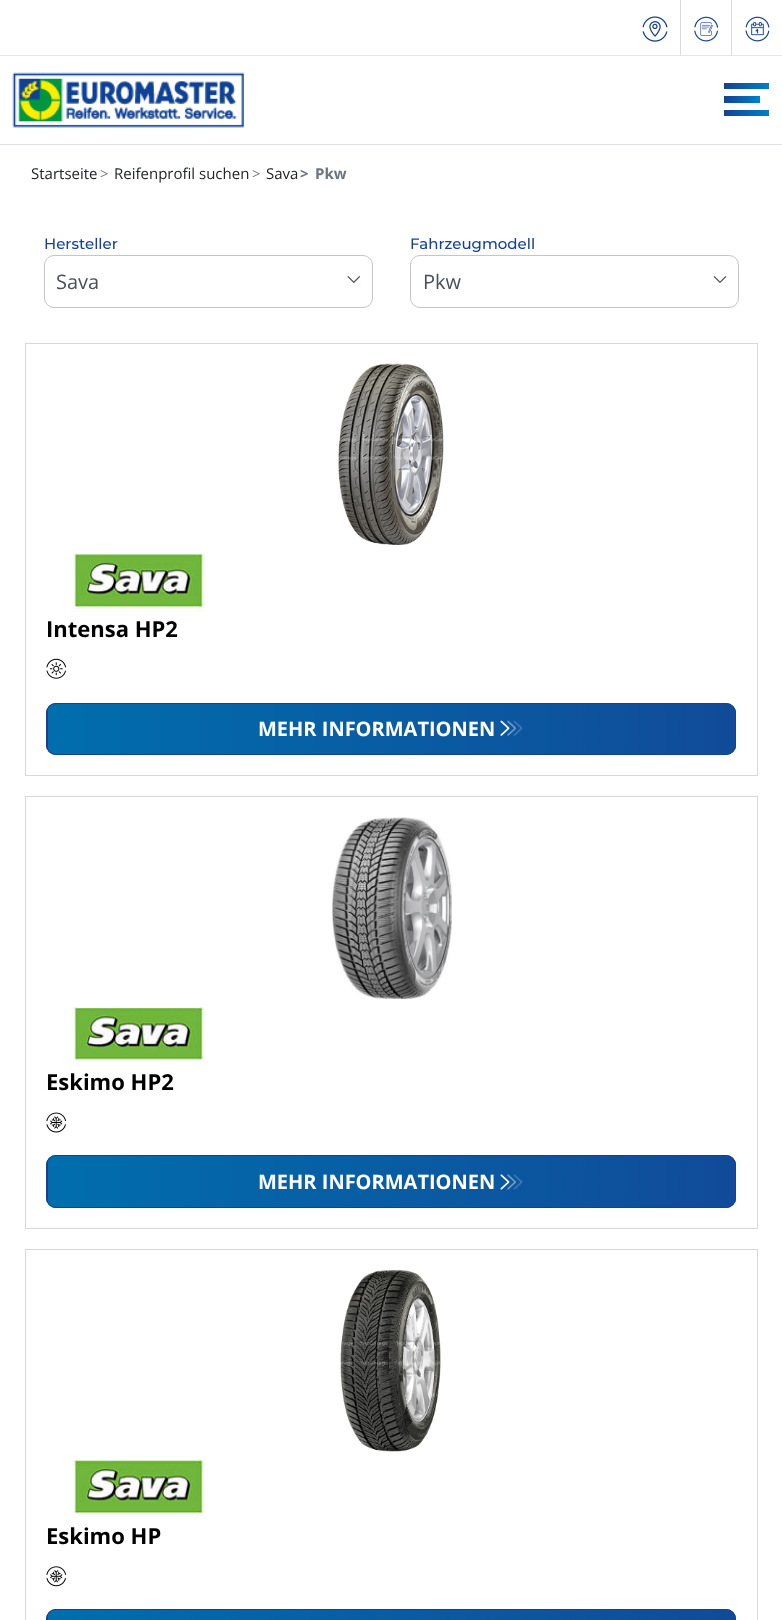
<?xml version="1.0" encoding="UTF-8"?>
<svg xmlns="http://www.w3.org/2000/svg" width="782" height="1620">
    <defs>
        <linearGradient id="g1" gradientUnits="userSpaceOnUse" x1="724" y1="86" x2="769" y2="86"><stop offset="0" stop-color="#154194"/><stop offset="1" stop-color="#0080C9"/></linearGradient>
        <linearGradient id="g2" gradientUnits="userSpaceOnUse" x1="724" y1="99" x2="760" y2="99"><stop offset="0" stop-color="#154194"/><stop offset="1" stop-color="#0080C9"/></linearGradient>
        <linearGradient id="g3" gradientUnits="userSpaceOnUse" x1="724" y1="113" x2="769" y2="113"><stop offset="0" stop-color="#154194"/><stop offset="1" stop-color="#0080C9"/></linearGradient>
        <clipPath id="clip1"><rect x="46" y="703" width="690" height="52" rx="10"/></clipPath>
        <radialGradient id="g4" gradientUnits="userSpaceOnUse" cx="1079" cy="729" r="1032"><stop offset="0.15" stop-color="#154194"/><stop offset="1" stop-color="#006EAD"/></radialGradient>
        <clipPath id="clip2"><rect x="46" y="1155" width="690" height="53" rx="10"/></clipPath>
        <radialGradient id="g5" gradientUnits="userSpaceOnUse" cx="1079" cy="1181" r="1032"><stop offset="0.15" stop-color="#154194"/><stop offset="1" stop-color="#006EAD"/></radialGradient>
        <radialGradient id="g6" gradientUnits="userSpaceOnUse" cx="1079" cy="1231" r="1032"><stop offset="0.15" stop-color="#154194"/><stop offset="1" stop-color="#006EAD"/></radialGradient>
        <clipPath id="clip3"><rect x="46" y="1609" width="690" height="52" rx="10"/></clipPath>
        <radialGradient id="g7" gradientUnits="userSpaceOnUse" cx="1079" cy="1635" r="1032"><stop offset="0.15" stop-color="#154194"/><stop offset="1" stop-color="#006EAD"/></radialGradient>
    </defs>
    <rect width="100%" height="100%" fill="#FFFFFF"/>
    <rect x="0" y="144" width="782" height="1" fill="#DEE2E6"/>
    <rect x="0" y="55" width="782" height="1" fill="#E6E6E6"/>
    <image x="642" y="16" width="26" height="26" href="img_01.png"/>
    <rect x="680" y="0" width="1" height="56" fill="#DADADA"/>
    <image x="694" y="16" width="24" height="26" href="img_02.png"/>
    <rect x="731" y="0" width="1" height="56" fill="#DADADA"/>
    <image x="745" y="16" width="25" height="26" href="img_03.png"/>
    <image x="12" y="72" width="232" height="56" href="img_04.png"/>
    <rect x="724" y="83" width="45" height="6" fill="url(#g1)"/>
    <rect x="724" y="96" width="36" height="7" fill="url(#g2)"/>
    <rect x="724" y="110" width="45" height="6" fill="url(#g3)"/>
    <text x="31" y="179" font-family="Open Sans" font-size="15" fill="#212529">Startseite</text>
    <text x="100" y="179" font-family="Open Sans" font-size="15" fill="#6C757D">&gt;</text>
    <text x="114" y="179" font-family="Open Sans" font-size="15" fill="#212529">Reifenprofil suchen</text>
    <text x="252" y="179" font-family="Open Sans" font-size="15" fill="#6C757D">&gt;</text>
    <text x="266" y="179" font-family="Open Sans" font-size="15" fill="#212529">Sava</text>
    <text x="300" y="179" font-family="Open Sans" font-size="15" font-weight="700" fill="#6C757D">&gt;</text>
    <text x="315" y="179" font-family="Open Sans" font-size="15" font-weight="700" fill="#6C757D">Pkw</text>
    <text x="44" y="249" font-family="Montserrat" font-size="15" font-weight="500" fill="#154194">Hersteller</text>
    <rect x="44.5" y="255.5" width="328" height="52" rx="9.5" fill="none" stroke="#C5C5C5"/>
    <path d="M 356 278.5 L 361 283.5 L 366 278.5" fill="none" stroke="#495057" stroke-width="2.5"/>
    <text x="56" y="289" font-family="Open Sans" font-size="20" fill="#495057">Sava</text>
    <rect x="355" y="277" width="12" height="8" fill="#FFFFFF"/>
    <image x="347" y="276" width="13" height="7" href="img_05.png"/>
    <text x="410" y="249" font-family="Montserrat" font-size="15" font-weight="500" fill="#154194">Fahrzeugmodell</text>
    <rect x="410.5" y="255.5" width="328" height="52" rx="9.5" fill="none" stroke="#C5C5C5"/>
    <path d="M 722.5 278.5 L 727.5 283.5 L 732.5 278.5" fill="none" stroke="#495057" stroke-width="2.5"/>
    <text x="423" y="289" font-family="Open Sans" font-size="20" fill="#495057">Pkw</text>
    <rect x="721" y="277" width="13" height="8" fill="#FFFFFF"/>
    <image x="713" y="276" width="14" height="7" href="img_06.png"/>
    <rect x="25.5" y="343.5" width="732" height="432" fill="none" stroke="#D8D8D8"/>
    <image x="338" y="363" width="106" height="182" href="img_07.png"/>
    <image x="71" y="553" width="134" height="59" href="img_08.png"/>
    <text x="46" y="637" font-family="Open Sans" font-size="22" font-weight="700" fill="#000000">Intensa HP2</text>
    <image x="46" y="658" width="20" height="21" href="img_09.png"/>
    <rect x="46" y="703" width="690" height="52" rx="10" fill="#154194"/>
    <g clip-path="url(#clip1)">
        <rect x="48" y="704" width="688" height="50" fill="url(#g4)"/>
    </g>
    <rect x="46.5" y="703.5" width="689" height="51" rx="9.5" fill="none" stroke="#154194"/>
    <text x="258" y="736" font-family="Open Sans" font-size="20" font-weight="700" fill="#FFFFFF">MEHR INFORMATIONEN</text>
    <image x="500" y="720" width="23" height="16" href="img_10.png"/>
    <rect x="25.5" y="796.5" width="732" height="432" fill="none" stroke="#D8D8D8"/>
    <image x="332" y="817" width="120" height="182" href="img_11.png"/>
    <image x="71" y="1007" width="134" height="58" href="img_12.png"/>
    <text x="46" y="1090" font-family="Open Sans" font-size="22" font-weight="700" fill="#000000">Eskimo HP2</text>
    <image x="46" y="1112" width="20" height="21" href="img_13.png"/>
    <rect x="46" y="1155" width="690" height="53" rx="10" fill="#154194"/>
    <g clip-path="url(#clip2)">
        <rect x="48" y="1156" width="688" height="50" fill="url(#g5)"/>
        <rect x="48" y="1206" width="688" height="2" fill="url(#g6)"/>
    </g>
    <rect x="46.5" y="1155.5" width="689" height="52" rx="9.5" fill="none" stroke="#154194"/>
    <text x="258" y="1189" font-family="Open Sans" font-size="20" font-weight="700" fill="#FFFFFF">MEHR INFORMATIONEN</text>
    <image x="500" y="1174" width="23" height="16" href="img_14.png"/>
    <rect x="25.5" y="1249.5" width="732" height="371" fill="none" stroke="#D8D8D8"/>
    <image x="340" y="1270" width="101" height="182" href="img_15.png"/>
    <image x="71" y="1459" width="134" height="59" href="img_16.png"/>
    <text x="46" y="1544" font-family="Open Sans" font-size="22" font-weight="700" fill="#000000">Eskimo HP</text>
    <image x="46" y="1566" width="20" height="21" href="img_17.png"/>
    <rect x="46" y="1609" width="690" height="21" rx="10" fill="#154194"/>
    <g clip-path="url(#clip3)">
        <rect x="48" y="1610" width="688" height="10" fill="url(#g7)"/>
    </g>
    <rect x="46.5" y="1609.5" width="689" height="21" rx="9.5" fill="none" stroke="#154194"/>
</svg>
